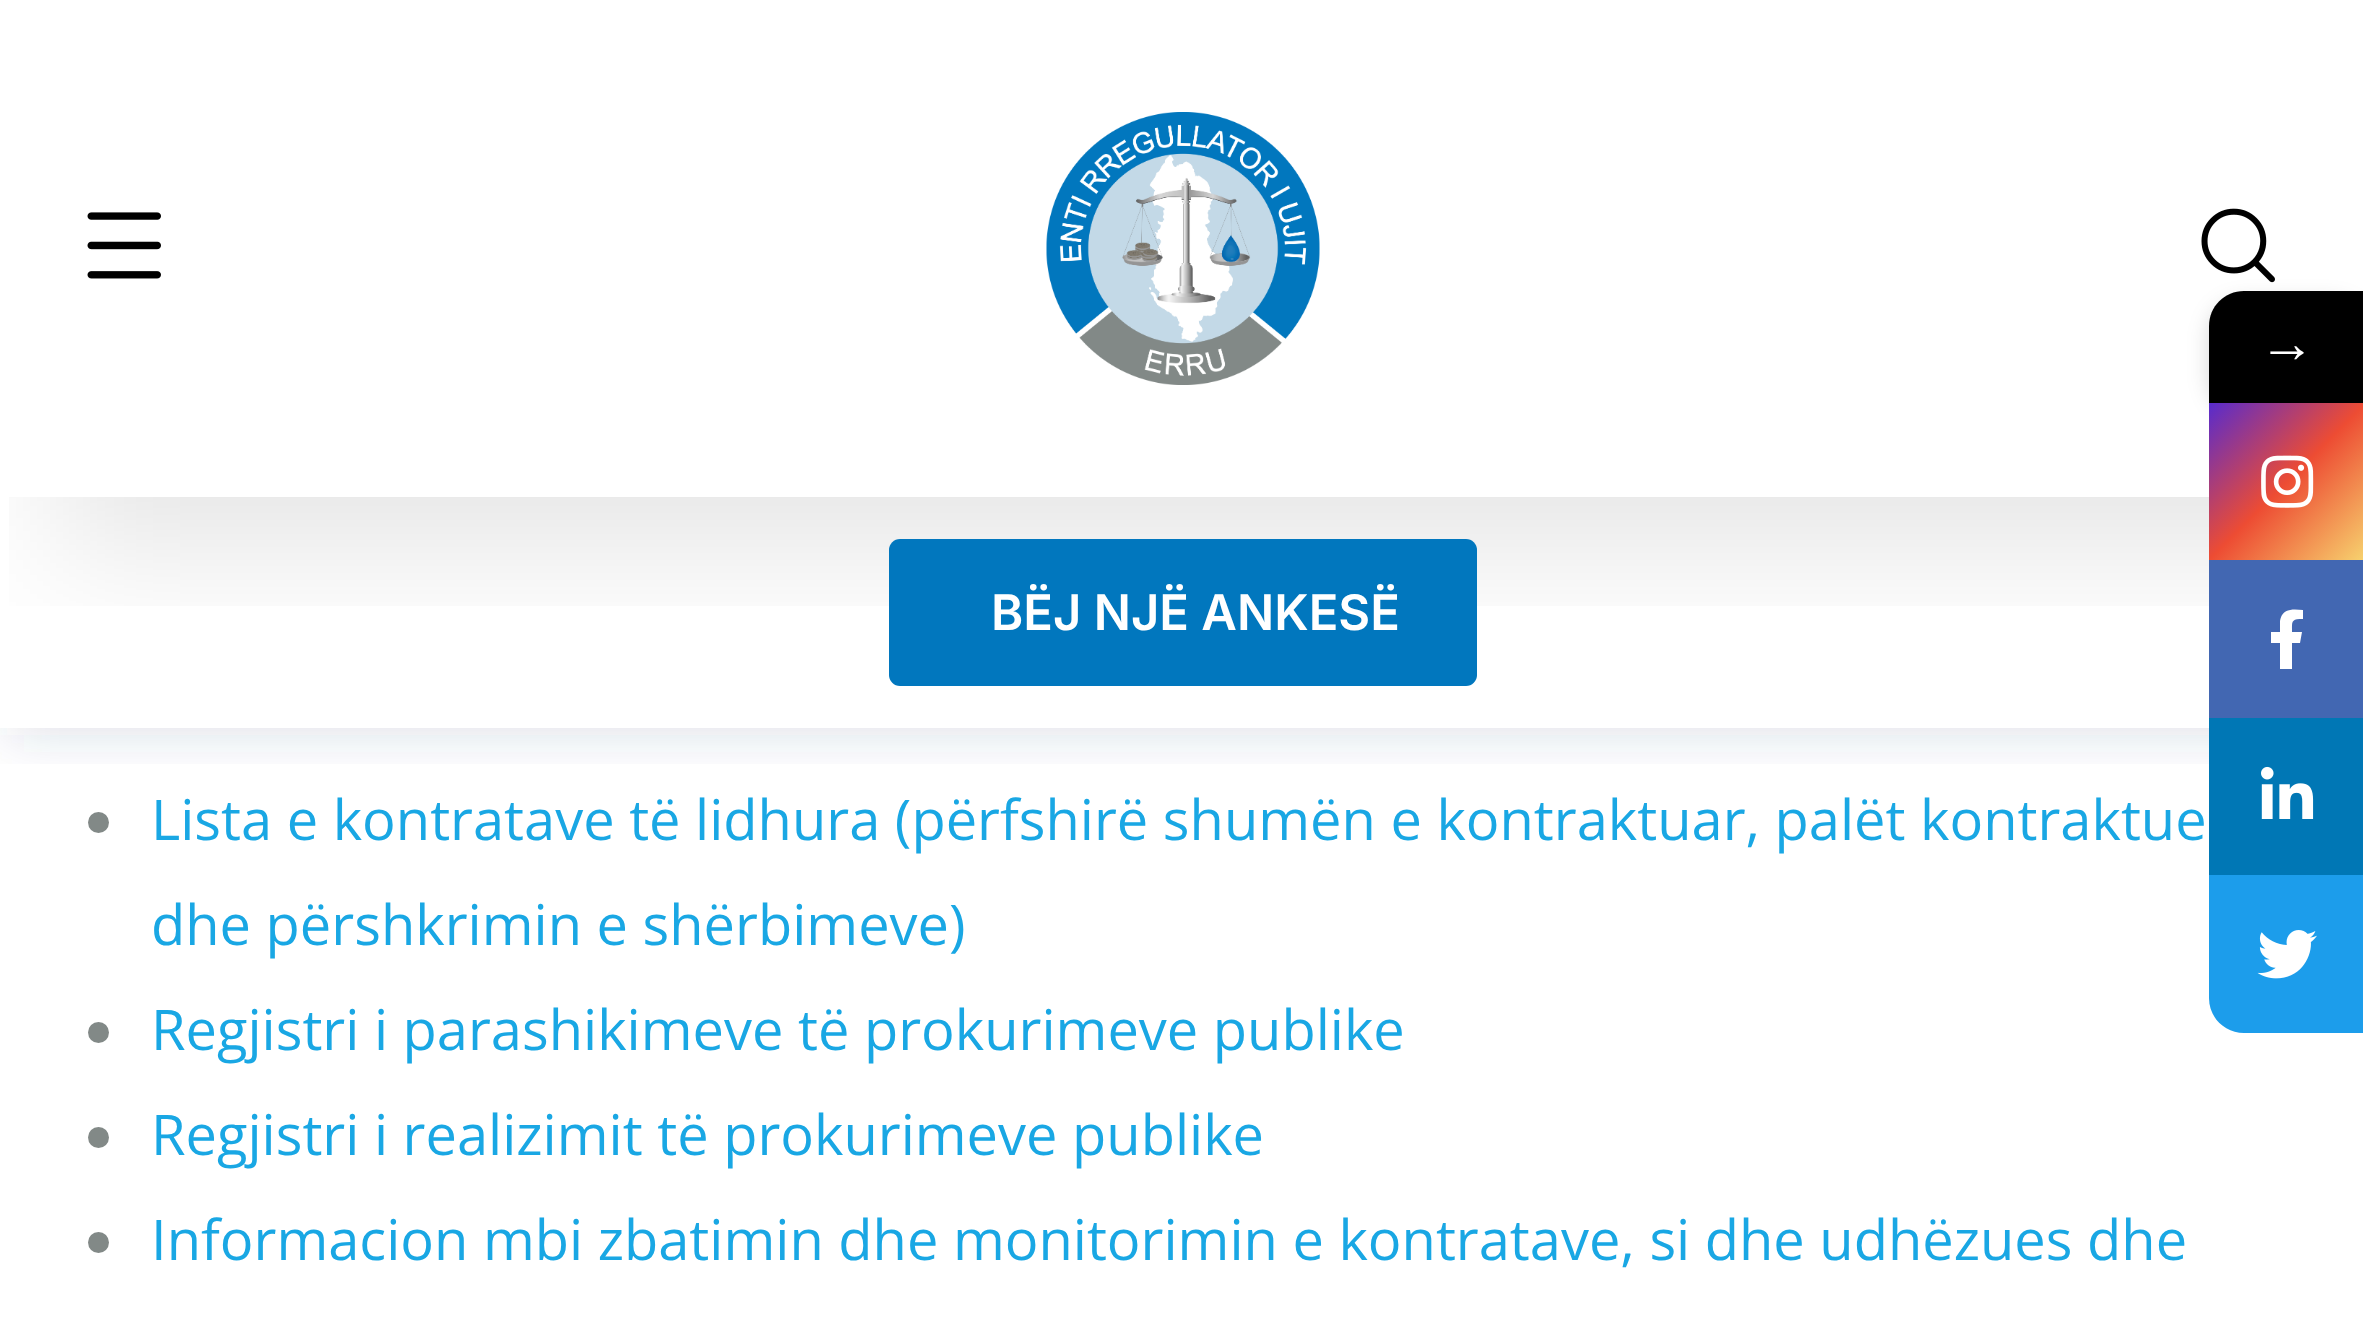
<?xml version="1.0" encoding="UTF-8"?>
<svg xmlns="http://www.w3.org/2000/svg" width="2363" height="1318">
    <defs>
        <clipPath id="clip1"><rect x="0" y="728" width="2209" height="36"/></clipPath>
        <filter id="blur1" x="-50%" y="-200%" width="200%" height="500%"><feGaussianBlur stdDeviation="26"/></filter>
        <clipPath id="clip2"><rect x="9" y="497" width="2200" height="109"/></clipPath>
        <filter id="blur2" x="-50%" y="-200%" width="200%" height="500%"><feGaussianBlur stdDeviation="66.5"/></filter>
        <filter id="blur3" x="-50%" y="-200%" width="200%" height="500%"><feGaussianBlur stdDeviation="10.5"/></filter>
        <linearGradient id="g1" gradientUnits="userSpaceOnUse" x1="2209" y1="403" x2="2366" y2="560"><stop offset="0" stop-color="#582BCD"/><stop offset="0.5" stop-color="#ED4C33"/><stop offset="1" stop-color="#F7D36F"/></linearGradient>
    </defs>
    <rect width="100%" height="100%" fill="#FFFFFF"/>
    <circle cx="98.5" cy="822.5" r="10.5" fill="#828987"/>
    <g clip-path="url(#clip1)">
        <rect x="7" y="7" width="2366" height="728" fill="#2A4371" fill-opacity="0.15" filter="url(#blur1)"/>
    </g>
    <g clip-path="url(#clip2)">
        <rect x="53" y="53" width="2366" height="497" fill="#000000" fill-opacity="0.1" filter="url(#blur2)"/>
    </g>
    <image x="2201" y="208" width="74" height="75" href="img_06.png"/>
    <rect x="2209" y="301" width="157" height="112" rx="35" fill="#000000" fill-opacity="0.16" filter="url(#blur3)"/>
    <path d="M 2244 291 H 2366 V 403 H 2209 V 326 C 2209 306.5 2224.5 291 2244 291 Z" fill="#000000"/>
    <text x="2259" y="362" font-family="Liberation Serif" font-size="56" fill="#FFFFFF">→</text>
    <rect x="2209" y="403" width="154" height="157" fill="url(#g1)"/>
    <image x="2261" y="455" width="53" height="53" href="img_01.png"/>
    <rect x="2209" y="560" width="154" height="158" fill="#4267B2"/>
    <path d="M 2300 643 H 2292 V 669 H 2280 V 643 H 2271 V 632 H 2280 V 621 C 2282 608 2293 609 2303 610 V 619 C 2291 619 2292 621 2292 632 H 2302 Z" fill="#FFFFFF"/>
    <rect x="2209" y="718" width="154" height="157" fill="#0077B5"/>
    <image x="2261" y="766" width="53" height="53" href="img_02.png"/>
    <path d="M 2209 875 H 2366 V 1033 H 2244 C 2224.5 1033 2209 1017.5 2209 998 Z" fill="#1C9DEB"/>
    <image x="2257" y="930" width="60" height="49" href="img_03.png"/>
    <image x="87" y="212" width="74" height="67" href="img_04.png"/>
    <image x="1046" y="112" width="274" height="273" href="img_05.png"/>
    <rect x="889" y="539" width="588" height="147" rx="11" fill="#0177BE"/>
    <text x="991" y="630" font-family="Inter" font-size="49" font-weight="600" fill="#FFFFFF">BËJ NJË ANKESË</text>
    <text font-family="Open Sans" font-size="56" fill="#19A7E4">
        <tspan x="151" y="840">Lista e kontratave të lidhura (përfshirë shumën e kontraktuar, palët kontraktue</tspan>
        <tspan x="151" y="945">dhe përshkrimin e shërbimeve)</tspan>
    </text>
    <circle cx="98.5" cy="1032.5" r="10.5" fill="#828987"/>
    <text x="151" y="1050" font-family="Open Sans" font-size="56" fill="#19A7E4">Regjistri i parashikimeve të prokurimeve publike</text>
    <circle cx="98.5" cy="1137.5" r="10.5" fill="#828987"/>
    <text x="151" y="1155" font-family="Open Sans" font-size="56" fill="#19A7E4">Regjistri i realizimit të prokurimeve publike</text>
    <circle cx="98.5" cy="1242.5" r="10.5" fill="#828987"/>
    <text x="151" y="1260" font-family="Open Sans" font-size="56" fill="#19A7E4">Informacion mbi zbatimin dhe monitorimin e kontratave, si dhe udhëzues dhe</text>
</svg>
